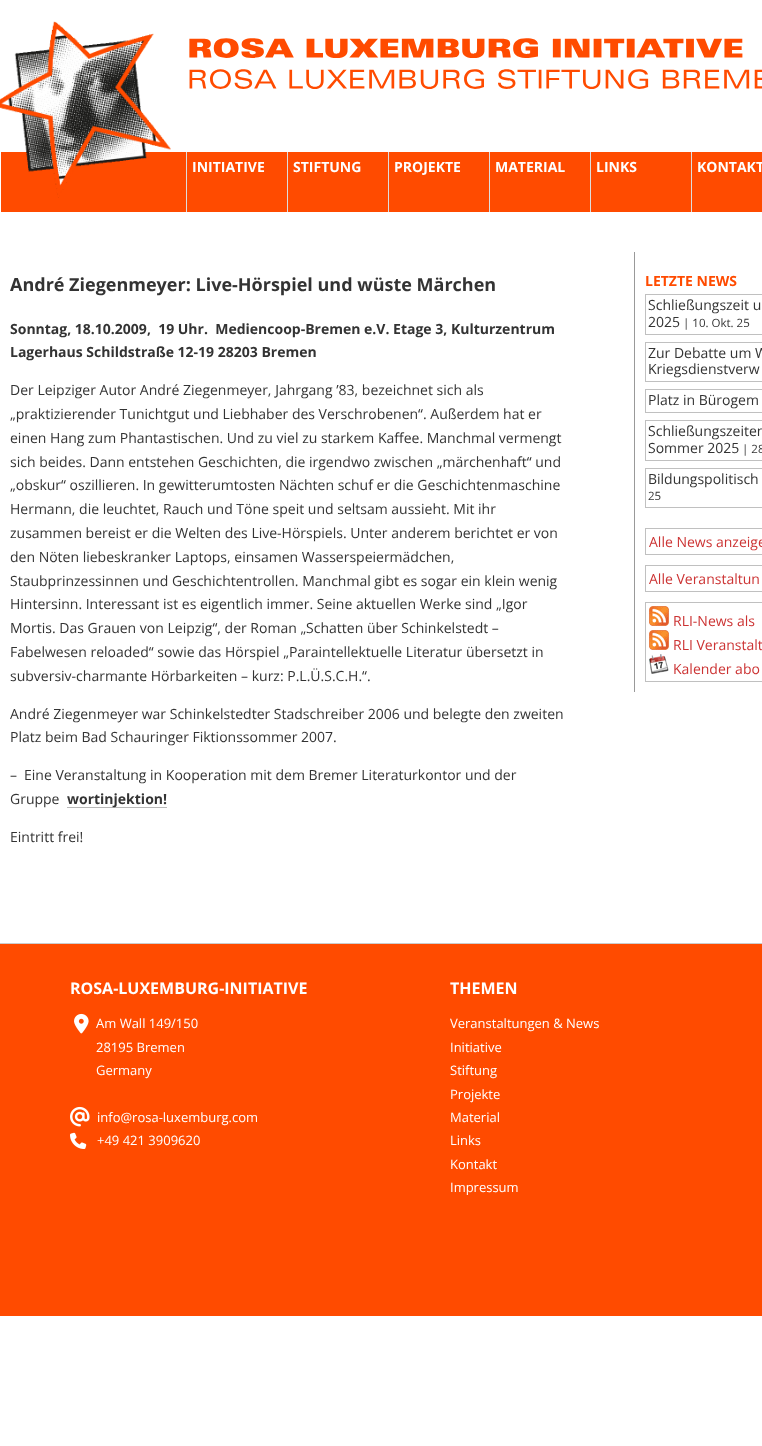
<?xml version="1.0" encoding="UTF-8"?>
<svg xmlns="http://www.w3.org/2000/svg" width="762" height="1446">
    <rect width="100%" height="100%" fill="#FFFFFF"/>
    <rect x="1" y="152" width="761" height="60" fill="#FF4B00"/>
    <image x="0" y="21" width="171" height="177" href="img_01.png"/>
    <image x="189" y="38" width="573" height="51" href="img_02.png"/>
    <rect x="287" y="152" width="1" height="60" fill="#DDDDDD"/>
    <rect x="186" y="152" width="1" height="60" fill="#DDDDDD"/>
    <text x="192" y="172" font-family="Open Sans" font-size="14" font-weight="700" fill="#FFFFFF">INITIATIVE</text>
    <rect x="388" y="152" width="1" height="60" fill="#DDDDDD"/>
    <text x="293" y="172" font-family="Open Sans" font-size="14" font-weight="700" fill="#FFFFFF">STIFTUNG</text>
    <rect x="489" y="152" width="1" height="60" fill="#DDDDDD"/>
    <text x="394" y="172" font-family="Open Sans" font-size="14" font-weight="700" fill="#FFFFFF">PROJEKTE</text>
    <rect x="590" y="152" width="1" height="60" fill="#DDDDDD"/>
    <text x="495" y="172" font-family="Open Sans" font-size="14" font-weight="700" fill="#FFFFFF">MATERIAL</text>
    <rect x="691" y="152" width="1" height="60" fill="#DDDDDD"/>
    <text x="596" y="172" font-family="Open Sans" font-size="14" font-weight="700" fill="#FFFFFF">LINKS</text>
    <text x="697" y="172" font-family="Open Sans" font-size="14" font-weight="700" fill="#FFFFFF">KONTAKT</text>
    <text x="10" y="291" font-family="Open Sans" font-size="18" font-weight="700" fill="#333333">André Ziegenmeyer: Live-Hörspiel und wüste Märchen</text>
    <text font-family="Open Sans" font-size="14" font-weight="700" fill="#333333" xml:space="preserve"><tspan x="10" y="334">Sonntag, 18.10.2009,  19 Uhr.  Mediencoop-Bremen e.V. Etage 3, Kulturzentrum</tspan><tspan x="10" y="357">Lagerhaus Schildstraße 12-19 28203 Bremen</tspan></text>
    <text font-family="Open Sans" font-size="14" fill="#333333">
        <tspan x="10" y="395">Der Leipziger Autor André Ziegenmeyer, Jahrgang ’83, bezeichnet sich als</tspan>
        <tspan x="10" y="419">„praktizierender Tunichtgut und Liebhaber des Verschrobenen“. Außerdem hat er</tspan>
        <tspan x="10" y="443">einen Hang zum Phantastischen. Und zu viel zu starkem Kaffee. Manchmal vermengt</tspan>
        <tspan x="10" y="467">sich beides. Dann entstehen Geschichten, die irgendwo zwischen „märchenhaft“ und</tspan>
        <tspan x="10" y="490">„obskur“ oszillieren. In gewitterumtosten Nächten schuf er die Geschichtenmaschine</tspan>
        <tspan x="10" y="514">Hermann, die leuchtet, Rauch und Töne speit und seltsam aussieht. Mit ihr</tspan>
        <tspan x="10" y="538">zusammen bereist er die Welten des Live-Hörspiels. Unter anderem berichtet er von</tspan>
        <tspan x="10" y="562">den Nöten liebeskranker Laptops, einsamen Wasserspeiermädchen,</tspan>
        <tspan x="10" y="586">Staubprinzessinnen und Geschichtentrollen. Manchmal gibt es sogar ein klein wenig</tspan>
        <tspan x="10" y="609">Hintersinn. Interessant ist es eigentlich immer. Seine aktuellen Werke sind „Igor</tspan>
        <tspan x="10" y="633">Mortis. Das Grauen von Leipzig“, der Roman „Schatten über Schinkelstedt –</tspan>
        <tspan x="10" y="657">Fabelwesen reloaded“ sowie das Hörspiel „Paraintellektuelle Literatur übersetzt in</tspan>
        <tspan x="10" y="681">subversiv-charmante Hörbarkeiten – kurz: P.L.Ü.S.C.H.“.</tspan>
    </text>
    <text font-family="Open Sans" font-size="14" fill="#333333">
        <tspan x="10" y="719">André Ziegenmeyer war Schinkelstedter Stadschreiber 2006 und belegte den zweiten</tspan>
        <tspan x="10" y="742">Platz beim Bad Schauringer Fiktionssommer 2007.</tspan>
    </text>
    <text x="10" y="780" font-family="Open Sans" font-size="14" fill="#333333">–</text>
    <text x="24" y="780" font-family="Open Sans" font-size="14" fill="#333333">Eine Veranstaltung in Kooperation mit dem Bremer Literaturkontor und der</text>
    <text x="10" y="804" font-family="Open Sans" font-size="14" fill="#333333">Gruppe</text>
    <rect x="67" y="807" width="100" height="1" fill="#B8B8B8"/>
    <text x="67" y="804" font-family="Open Sans" font-size="14" font-weight="700" fill="#333333">wortinjektion!</text>
    <text x="10" y="842" font-family="Open Sans" font-size="14" fill="#333333">Eintritt frei!</text>
    <rect x="634" y="252" width="1" height="440" fill="#999999"/>
    <text x="645" y="286" font-family="Open Sans" font-size="14" font-weight="700" fill="#FF4B00">LETZTE NEWS</text>
    <rect x="645.5" y="294.5" width="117" height="40" fill="none" stroke="#C0C0C0"/>
    <text font-family="Open Sans" font-size="14" fill="#333333">
        <tspan x="648" y="310">Schließungszeit u</tspan>
        <tspan x="648" y="327">2025</tspan>
    </text>
    <text x="683" y="327" font-family="Open Sans" font-size="11.5" fill="#333333">| 10. Okt. 25</text>
    <rect x="645.5" y="342.5" width="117" height="39" fill="none" stroke="#C0C0C0"/>
    <text font-family="Open Sans" font-size="14" fill="#333333">
        <tspan x="648" y="358">Zur Debatte um W</tspan>
        <tspan x="648" y="374">Kriegsdienstverw</tspan>
    </text>
    <rect x="645.5" y="389.5" width="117" height="23" fill="none" stroke="#C0C0C0"/>
    <text x="648" y="405" font-family="Open Sans" font-size="14" fill="#333333">Platz in Bürogem</text>
    <rect x="645.5" y="420.5" width="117" height="40" fill="none" stroke="#C0C0C0"/>
    <text font-family="Open Sans" font-size="14" fill="#333333">
        <tspan x="648" y="436">Schließungszeiten</tspan>
        <tspan x="648" y="453">Sommer 2025</tspan>
    </text>
    <text x="742" y="453" font-family="Open Sans" font-size="11.5" fill="#333333">| 28</text>
    <rect x="645.5" y="468.5" width="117" height="39" fill="none" stroke="#C0C0C0"/>
    <text x="648" y="484" font-family="Open Sans" font-size="14" fill="#333333">Bildungspolitisch</text>
    <text x="648" y="500" font-family="Open Sans" font-size="11.5" fill="#333333">25</text>
    <rect x="645.5" y="528.5" width="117" height="26" fill="none" stroke="#C0C0C0"/>
    <text x="649" y="547" font-family="Open Sans" font-size="14" fill="#CC3333">Alle News anzeige</text>
    <rect x="645.5" y="565.5" width="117" height="26" fill="none" stroke="#C0C0C0"/>
    <text x="649" y="584" font-family="Open Sans" font-size="14" fill="#CC3333">Alle Veranstaltun</text>
    <rect x="645.5" y="602.5" width="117" height="79" fill="none" stroke="#C0C0C0"/>
    <image x="649" y="606" width="20" height="20" href="img_03.png"/>
    <text x="673" y="626" font-family="Open Sans" font-size="14" fill="#CC3333">RLI-News als</text>
    <image x="649" y="630" width="20" height="20" href="img_03.png"/>
    <text x="673" y="650" font-family="Open Sans" font-size="14" fill="#CC3333">RLI Veranstalt</text>
    <image x="649" y="654" width="20" height="20" href="img_04.png"/>
    <text x="673" y="674" font-family="Open Sans" font-size="14" fill="#CC3333">Kalender abo</text>
    <rect x="0" y="944" width="762" height="372" fill="#FF4B00"/>
    <rect x="0" y="943" width="762" height="1" fill="#CCCCCC"/>
    <text x="70" y="994" font-family="Open Sans" font-size="16" font-weight="700" fill="#FFFFFF">ROSA-LUXEMBURG-INITIATIVE</text>
    <image x="74" y="1013" width="15" height="21" href="img_05.png"/>
    <text font-family="Open Sans" font-size="13" fill="#FFFFFF">
        <tspan x="96" y="1028">Am Wall 149/150</tspan>
        <tspan x="96" y="1052">28195 Bremen</tspan>
        <tspan x="96" y="1075">Germany</tspan>
    </text>
    <image x="70" y="1106" width="20" height="21" href="img_06.png"/>
    <text x="97" y="1122" font-family="Open Sans" font-size="13" fill="#FFFFFF">info@rosa-luxemburg.com</text>
    <image x="70" y="1132" width="17" height="17" href="img_07.png"/>
    <text x="97" y="1145" font-family="Open Sans" font-size="13" fill="#FFFFFF">+49 421 3909620</text>
    <text x="450" y="994" font-family="Open Sans" font-size="16" font-weight="700" fill="#FFFFFF">THEMEN</text>
    <text font-family="Open Sans" font-size="13" fill="#FFFFFF">
        <tspan x="450" y="1028">Veranstaltungen &amp; News</tspan>
        <tspan x="450" y="1052">Initiative</tspan>
        <tspan x="450" y="1075">Stiftung</tspan>
        <tspan x="450" y="1099">Projekte</tspan>
        <tspan x="450" y="1122">Material</tspan>
        <tspan x="450" y="1145">Links</tspan>
        <tspan x="450" y="1169">Kontakt</tspan>
        <tspan x="450" y="1192">Impressum</tspan>
    </text>
</svg>
